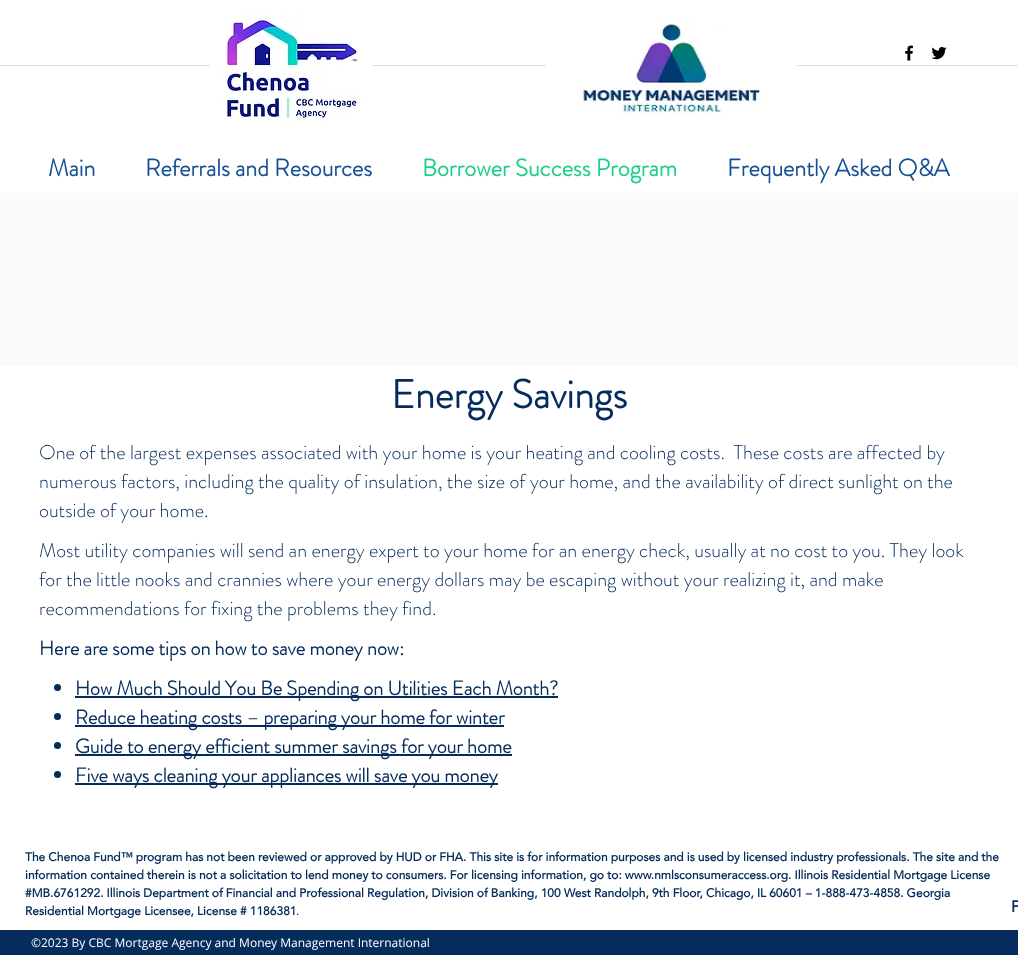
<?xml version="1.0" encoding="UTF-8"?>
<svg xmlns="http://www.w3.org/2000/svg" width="1018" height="955">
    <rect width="100%" height="100%" fill="#FFFFFF"/>
    <rect x="0" y="65" width="1018" height="1" fill="#DADFE7"/>
    <image x="210" y="13" width="162" height="108" href="img_01.png"/>
    <image x="546" y="20" width="251" height="94" href="img_02.png"/>
    <image x="905" y="45" width="9" height="16" href="img_03.png"/>
    <image x="931" y="46" width="16" height="14" href="img_04.png"/>
    <text x="48" y="176" font-family="'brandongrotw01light'" font-size="24" font-weight="700" fill="#175096">Main</text>
    <text x="145" y="176" font-family="'brandongrotw01light'" font-size="24" font-weight="700" fill="#175096">Referrals and Resources</text>
    <text x="422" y="176" font-family="'brandongrotw01light'" font-size="24" font-weight="700" fill="#20CE88">Borrower Success Program</text>
    <text x="727" y="176" font-family="'brandongrotw01light'" font-size="24" font-weight="700" fill="#175096">Frequently Asked Q&amp;A</text>
    <rect x="0" y="193" width="1018" height="173" fill="#FAFAFA"/>
    <text x="391" y="408" font-family="'brandongrotw01light'" font-size="40" font-weight="700" fill="#052C5C">Energy Savings</text>
    <text font-family="'brandongrotw01light'" font-size="20" font-weight="300" fill="#052C5C" xml:space="preserve"><tspan x="39" y="459">One of the largest expenses associated with your home is your heating and cooling costs.  These costs are affected by</tspan><tspan x="39" y="488">numerous factors, including the quality of insulation, the size of your home, and the availability of direct sunlight on the</tspan><tspan x="39" y="517">outside of your home.</tspan></text>
    <text font-family="'brandongrotw01light'" font-size="20" font-weight="300" fill="#052C5C">
        <tspan x="39" y="557">Most utility companies will send an energy expert to your home for an energy check, usually at no cost to you. They look</tspan>
        <tspan x="39" y="586">for the little nooks and crannies where your energy dollars may be escaping without your realizing it, and make</tspan>
        <tspan x="39" y="615">recommendations for fixing the problems they find.</tspan>
    </text>
    <text x="39" y="655" font-family="'brandongrotw01light'" font-size="20" font-weight="700" fill="#052C5C">Here are some tips on how to save money now:</text>
    <circle cx="57.5" cy="687.5" r="3.5" fill="#052C5C"/>
    <rect x="75" y="696" width="483" height="2" fill="#052C5C"/>
    <text x="75" y="695" font-family="'brandongrotw01light'" font-size="20" font-weight="700" fill="#052C5C">How Much Should You Be Spending on Utilities Each Month?</text>
    <circle cx="57.5" cy="716.5" r="3.5" fill="#052C5C"/>
    <rect x="75" y="725" width="429" height="2" fill="#052C5C"/>
    <text x="75" y="724" font-family="'brandongrotw01light'" font-size="20" font-weight="700" fill="#052C5C">Reduce heating costs – preparing your home for winter</text>
    <circle cx="57.5" cy="745.5" r="3.5" fill="#052C5C"/>
    <rect x="75" y="754" width="437" height="2" fill="#052C5C"/>
    <text x="75" y="753" font-family="'brandongrotw01light'" font-size="20" font-weight="700" fill="#052C5C">Guide to energy efficient summer savings for your home</text>
    <circle cx="57.5" cy="774.5" r="3.5" fill="#052C5C"/>
    <rect x="75" y="783" width="423" height="2" fill="#052C5C"/>
    <text x="75" y="782" font-family="'brandongrotw01light'" font-size="20" font-weight="700" fill="#052C5C">Five ways cleaning your appliances will save you money</text>
    <text font-family="'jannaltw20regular'" font-size="12" font-weight="700" fill="#052C5C">
        <tspan x="25" y="861">The Chenoa Fund™ program has not been reviewed or approved by HUD or FHA. This site is for information purposes and is used by licensed industry professionals. The site and the</tspan>
        <tspan x="25" y="879">information contained therein is not a solicitation to lend money to consumers. For licensing information, go to: www.nmlsconsumeraccess.org. Illinois Residential Mortgage License</tspan>
        <tspan x="25" y="897">#MB.6761292. Illinois Department of Financial and Professional Regulation, Division of Banking, 100 West Randolph, 9th Floor, Chicago, IL 60601 – 1-888-473-4858. Georgia</tspan>
        <tspan x="25" y="915">Residential Mortgage Licensee, License # 1186381</tspan>
    </text>
    <text x="296" y="915" font-family="'jannaltw20regular'" font-size="12" fill="#052C5C">.</text>
    <text x="1011" y="912" font-family="'jannaltw20regular'" font-size="16" font-weight="700" fill="#052C5C">F</text>
    <rect x="0" y="930" width="1018" height="25" fill="#052C5C"/>
    <text x="31" y="947" font-family="Open Sans" font-size="12" fill="#FFFFFF">©2023 By CBC Mortgage Agency and Money Management International</text>
</svg>
